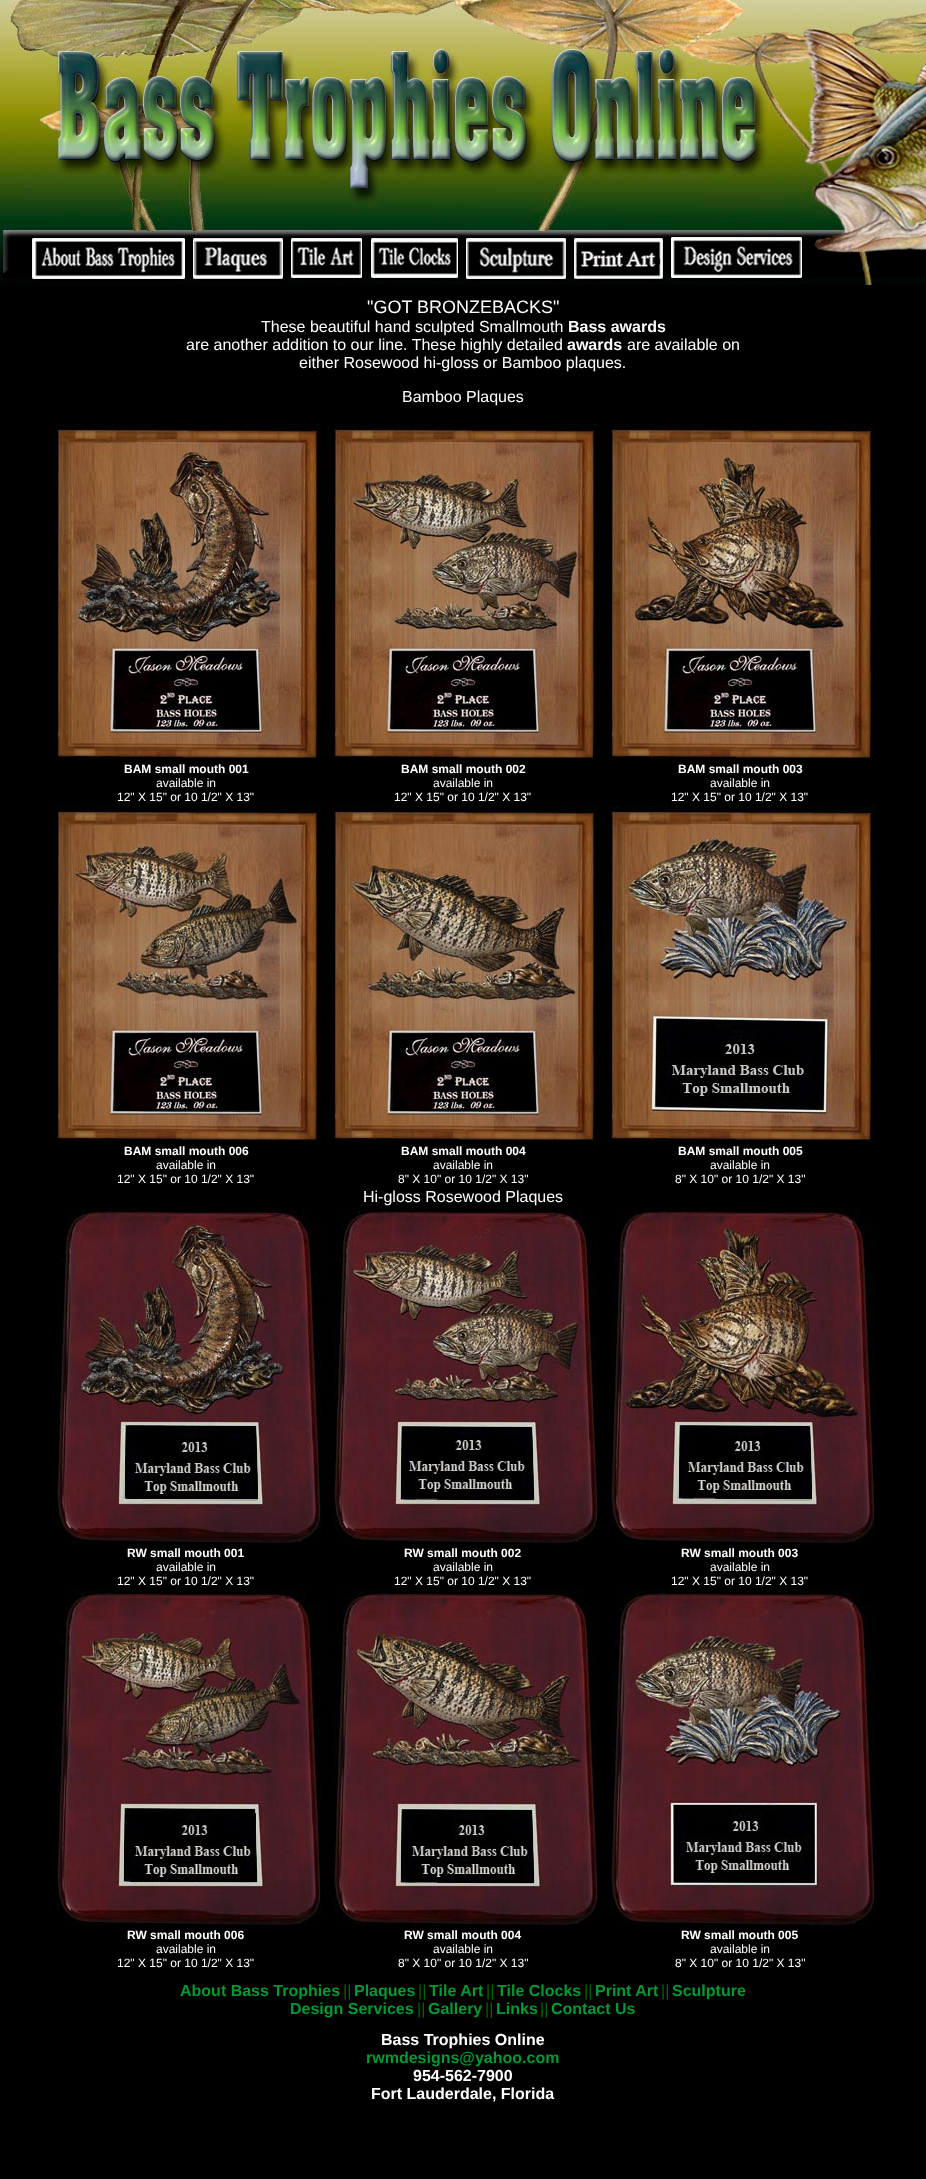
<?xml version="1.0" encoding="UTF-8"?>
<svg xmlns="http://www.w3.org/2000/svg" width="926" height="2179">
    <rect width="100%" height="100%" fill="#000000"/>
    <image x="0" y="0" width="926" height="285" href="img_01.png"/>
    <text x="367" y="313" font-family="Liberation Sans" font-size="18" fill="#FFFFFF">"GOT BRONZEBACKS"</text>
    <text x="261" y="332" font-family="Liberation Sans" font-size="16" fill="#FFFFFF">These beautiful hand sculpted Smallmouth</text>
    <text x="568" y="332" font-family="Liberation Sans" font-size="16" font-weight="700" fill="#FFFFFF">Bass awards</text>
    <text x="186" y="350" font-family="Liberation Sans" font-size="16" fill="#FFFFFF">are another addition to our line. These highly detailed</text>
    <text x="567" y="350" font-family="Liberation Sans" font-size="16" font-weight="700" fill="#FFFFFF">awards</text>
    <text x="627" y="350" font-family="Liberation Sans" font-size="16" fill="#FFFFFF">are available on</text>
    <text x="299" y="368" font-family="Liberation Sans" font-size="16" fill="#FFFFFF">either Rosewood hi-gloss or Bamboo plaques.</text>
    <text x="402" y="402" font-family="Liberation Sans" font-size="16" fill="#FFFFFF">Bamboo Plaques</text>
    <image x="49" y="424" width="272" height="336" href="img_02.png"/>
    <text x="124" y="773" font-family="Liberation Sans" font-size="12" font-weight="700" fill="#FFFFFF">BAM small mouth 001</text>
    <text x="156" y="787" font-family="Liberation Sans" font-size="12" fill="#FFFFFF">available in</text>
    <text x="117" y="801" font-family="Liberation Sans" font-size="12" fill="#FFFFFF">12" X 15" or 10 1/2" X 13"</text>
    <image x="326" y="424" width="272" height="336" href="img_03.png"/>
    <text x="401" y="773" font-family="Liberation Sans" font-size="12" font-weight="700" fill="#FFFFFF">BAM small mouth 002</text>
    <text x="433" y="787" font-family="Liberation Sans" font-size="12" fill="#FFFFFF">available in</text>
    <text x="394" y="801" font-family="Liberation Sans" font-size="12" fill="#FFFFFF">12" X 15" or 10 1/2" X 13"</text>
    <image x="603" y="424" width="272" height="336" href="img_04.png"/>
    <text x="678" y="773" font-family="Liberation Sans" font-size="12" font-weight="700" fill="#FFFFFF">BAM small mouth 003</text>
    <text x="710" y="787" font-family="Liberation Sans" font-size="12" fill="#FFFFFF">available in</text>
    <text x="671" y="801" font-family="Liberation Sans" font-size="12" fill="#FFFFFF">12" X 15" or 10 1/2" X 13"</text>
    <image x="49" y="806" width="272" height="336" href="img_05.png"/>
    <text x="124" y="1155" font-family="Liberation Sans" font-size="12" font-weight="700" fill="#FFFFFF">BAM small mouth 006</text>
    <text x="156" y="1169" font-family="Liberation Sans" font-size="12" fill="#FFFFFF">available in</text>
    <text x="117" y="1183" font-family="Liberation Sans" font-size="12" fill="#FFFFFF">12" X 15" or 10 1/2" X 13"</text>
    <image x="326" y="806" width="272" height="336" href="img_06.png"/>
    <text x="401" y="1155" font-family="Liberation Sans" font-size="12" font-weight="700" fill="#FFFFFF">BAM small mouth 004</text>
    <text x="433" y="1169" font-family="Liberation Sans" font-size="12" fill="#FFFFFF">available in</text>
    <text x="398" y="1183" font-family="Liberation Sans" font-size="12" fill="#FFFFFF">8" X 10" or 10 1/2" X 13"</text>
    <image x="603" y="806" width="272" height="336" href="img_07.png"/>
    <text x="678" y="1155" font-family="Liberation Sans" font-size="12" font-weight="700" fill="#FFFFFF">BAM small mouth 005</text>
    <text x="710" y="1169" font-family="Liberation Sans" font-size="12" fill="#FFFFFF">available in</text>
    <text x="675" y="1183" font-family="Liberation Sans" font-size="12" fill="#FFFFFF">8" X 10" or 10 1/2" X 13"</text>
    <text x="363" y="1202" font-family="Liberation Sans" font-size="16" fill="#FFFFFF">Hi-gloss Rosewood Plaques</text>
    <image x="57" y="1208" width="264" height="336" href="img_08.png"/>
    <text x="127" y="1557" font-family="Liberation Sans" font-size="12" font-weight="700" fill="#FFFFFF">RW small mouth 001</text>
    <text x="156" y="1571" font-family="Liberation Sans" font-size="12" fill="#FFFFFF">available in</text>
    <text x="117" y="1585" font-family="Liberation Sans" font-size="12" fill="#FFFFFF">12" X 15" or 10 1/2" X 13"</text>
    <image x="334" y="1208" width="264" height="336" href="img_09.png"/>
    <text x="404" y="1557" font-family="Liberation Sans" font-size="12" font-weight="700" fill="#FFFFFF">RW small mouth 002</text>
    <text x="433" y="1571" font-family="Liberation Sans" font-size="12" fill="#FFFFFF">available in</text>
    <text x="394" y="1585" font-family="Liberation Sans" font-size="12" fill="#FFFFFF">12" X 15" or 10 1/2" X 13"</text>
    <image x="611" y="1208" width="264" height="336" href="img_10.png"/>
    <text x="681" y="1557" font-family="Liberation Sans" font-size="12" font-weight="700" fill="#FFFFFF">RW small mouth 003</text>
    <text x="710" y="1571" font-family="Liberation Sans" font-size="12" fill="#FFFFFF">available in</text>
    <text x="671" y="1585" font-family="Liberation Sans" font-size="12" fill="#FFFFFF">12" X 15" or 10 1/2" X 13"</text>
    <image x="57" y="1590" width="264" height="336" href="img_11.png"/>
    <text x="127" y="1939" font-family="Liberation Sans" font-size="12" font-weight="700" fill="#FFFFFF">RW small mouth 006</text>
    <text x="156" y="1953" font-family="Liberation Sans" font-size="12" fill="#FFFFFF">available in</text>
    <text x="117" y="1967" font-family="Liberation Sans" font-size="12" fill="#FFFFFF">12" X 15" or 10 1/2" X 13"</text>
    <image x="334" y="1590" width="264" height="336" href="img_12.png"/>
    <text x="404" y="1939" font-family="Liberation Sans" font-size="12" font-weight="700" fill="#FFFFFF">RW small mouth 004</text>
    <text x="433" y="1953" font-family="Liberation Sans" font-size="12" fill="#FFFFFF">available in</text>
    <text x="398" y="1967" font-family="Liberation Sans" font-size="12" fill="#FFFFFF">8" X 10" or 10 1/2" X 13"</text>
    <image x="611" y="1590" width="264" height="336" href="img_13.png"/>
    <text x="681" y="1939" font-family="Liberation Sans" font-size="12" font-weight="700" fill="#FFFFFF">RW small mouth 005</text>
    <text x="710" y="1953" font-family="Liberation Sans" font-size="12" fill="#FFFFFF">available in</text>
    <text x="675" y="1967" font-family="Liberation Sans" font-size="12" fill="#FFFFFF">8" X 10" or 10 1/2" X 13"</text>
    <text x="180" y="1996" font-family="Liberation Sans" font-size="16" font-weight="700" fill="#009933">About Bass Trophies</text>
    <text x="343" y="1996" font-family="Liberation Sans" font-size="16" fill="#006600">||</text>
    <text x="354" y="1996" font-family="Liberation Sans" font-size="16" font-weight="700" fill="#009933">Plaques</text>
    <text x="418" y="1996" font-family="Liberation Sans" font-size="16" fill="#006600">||</text>
    <text x="429" y="1996" font-family="Liberation Sans" font-size="16" font-weight="700" fill="#009933">Tile Art</text>
    <text x="486" y="1996" font-family="Liberation Sans" font-size="16" fill="#006600">||</text>
    <text x="497" y="1996" font-family="Liberation Sans" font-size="16" font-weight="700" fill="#009933">Tile Clocks</text>
    <text x="584" y="1996" font-family="Liberation Sans" font-size="16" fill="#006600">||</text>
    <text x="595" y="1996" font-family="Liberation Sans" font-size="16" font-weight="700" fill="#009933">Print Art</text>
    <text x="661" y="1996" font-family="Liberation Sans" font-size="16" fill="#006600">||</text>
    <text x="672" y="1996" font-family="Liberation Sans" font-size="16" font-weight="700" fill="#009933">Sculpture</text>
    <text x="290" y="2014" font-family="Liberation Sans" font-size="16" font-weight="700" fill="#009933">Design Services</text>
    <text x="417" y="2014" font-family="Liberation Sans" font-size="16" fill="#006600">||</text>
    <text x="428" y="2014" font-family="Liberation Sans" font-size="16" font-weight="700" fill="#009933">Gallery</text>
    <text x="485" y="2014" font-family="Liberation Sans" font-size="16" fill="#006600">||</text>
    <text x="496" y="2014" font-family="Liberation Sans" font-size="16" font-weight="700" fill="#009933">Links</text>
    <text x="540" y="2014" font-family="Liberation Sans" font-size="16" fill="#006600">||</text>
    <text x="551" y="2014" font-family="Liberation Sans" font-size="16" font-weight="700" fill="#009933">Contact Us</text>
    <text x="381" y="2045" font-family="Liberation Sans" font-size="16" font-weight="700" fill="#FFFFFF">Bass Trophies Online</text>
    <text x="366" y="2063" font-family="Liberation Sans" font-size="16" font-weight="700" fill="#009933">rwmdesigns@yahoo.com</text>
    <text x="413" y="2081" font-family="Liberation Sans" font-size="16" font-weight="700" fill="#FFFFFF">954-562-7900</text>
    <text x="371" y="2099" font-family="Liberation Sans" font-size="16" font-weight="700" fill="#FFFFFF">Fort Lauderdale, Florida</text>
</svg>
